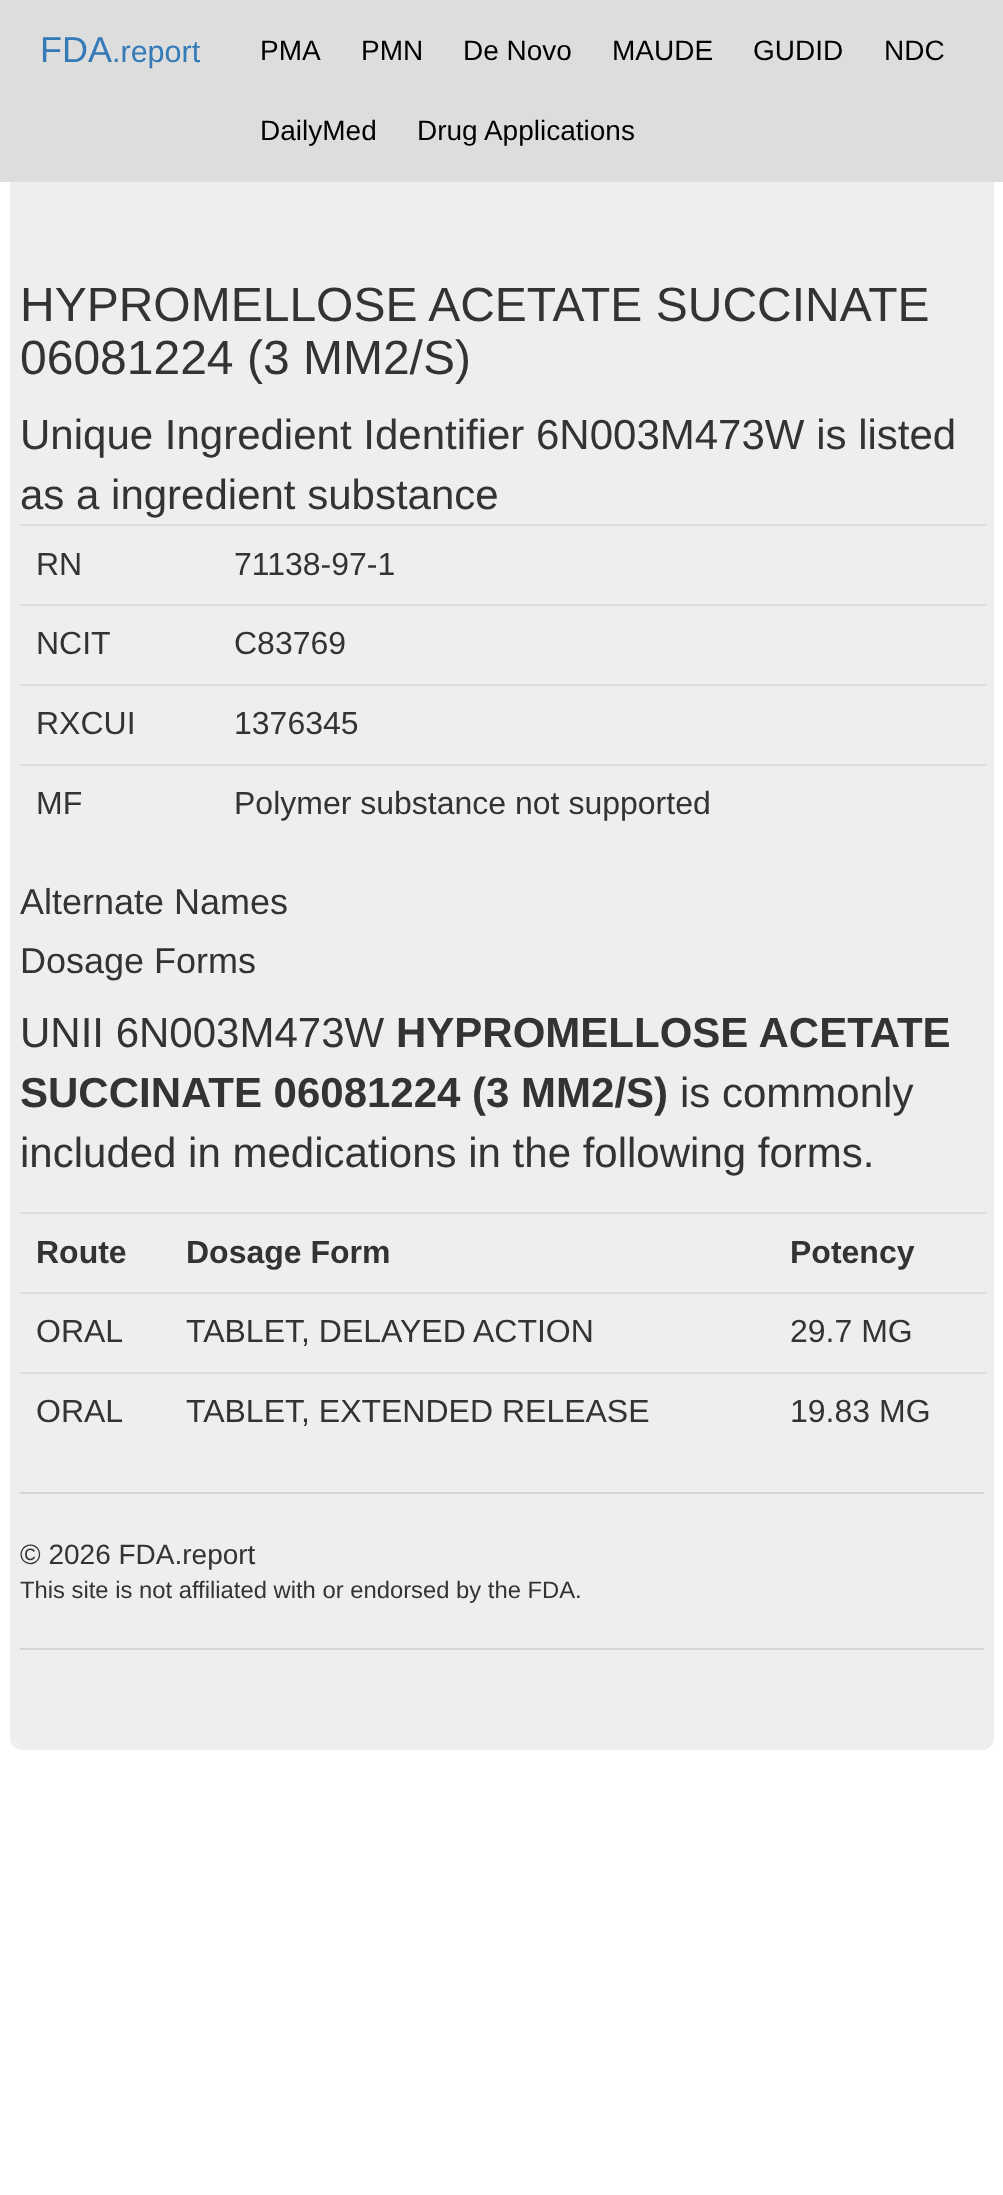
<?xml version="1.0" encoding="UTF-8"?>
<svg xmlns="http://www.w3.org/2000/svg" width="1003" height="2195">
    <rect width="100%" height="100%" fill="#FFFFFF"/>
    <rect x="10" y="0" width="984" height="1750" rx="12" fill="#EEEEEE"/>
    <rect x="0" y="0" width="1003" height="182" fill="#DDDDDD"/>
    <text x="40" y="62" font-family="Liberation Sans" font-size="36" fill="#337AB7">FDA</text>
    <text x="112" y="62" font-family="Liberation Sans" font-size="30.5" fill="#337AB7">.report</text>
    <text x="260" y="60" font-family="Liberation Sans" font-size="28" fill="#000000">PMA</text>
    <text x="361" y="60" font-family="Liberation Sans" font-size="28" fill="#000000">PMN</text>
    <text x="463" y="60" font-family="Liberation Sans" font-size="28" fill="#000000">De Novo</text>
    <text x="612" y="60" font-family="Liberation Sans" font-size="28" fill="#000000">MAUDE</text>
    <text x="753" y="60" font-family="Liberation Sans" font-size="28" fill="#000000">GUDID</text>
    <text x="884" y="60" font-family="Liberation Sans" font-size="28" fill="#000000">NDC</text>
    <text x="260" y="140" font-family="Liberation Sans" font-size="28" fill="#000000">DailyMed</text>
    <text x="417" y="140" font-family="Liberation Sans" font-size="28" fill="#000000">Drug Applications</text>
    <text font-family="Liberation Sans" font-size="48" fill="#333333">
        <tspan x="20" y="321">HYPROMELLOSE ACETATE SUCCINATE</tspan>
        <tspan x="20" y="374">06081224 (3 MM2/S)</tspan>
    </text>
    <text font-family="Liberation Sans" font-size="42" fill="#333333">
        <tspan x="20" y="449">Unique Ingredient Identifier 6N003M473W is listed</tspan>
        <tspan x="20" y="509">as a ingredient substance</tspan>
    </text>
    <text x="36" y="575" font-family="Liberation Sans" font-size="32" fill="#333333">RN</text>
    <rect x="20" y="524" width="966" height="2" fill="#DDDDDD"/>
    <text x="234" y="575" font-family="Liberation Sans" font-size="32" fill="#333333">71138-97-1</text>
    <text x="36" y="654" font-family="Liberation Sans" font-size="32" fill="#333333">NCIT</text>
    <rect x="20" y="604" width="966" height="2" fill="#DDDDDD"/>
    <text x="234" y="654" font-family="Liberation Sans" font-size="32" fill="#333333">C83769</text>
    <text x="36" y="734" font-family="Liberation Sans" font-size="32" fill="#333333">RXCUI</text>
    <rect x="20" y="684" width="966" height="2" fill="#DDDDDD"/>
    <text x="234" y="734" font-family="Liberation Sans" font-size="32" fill="#333333">1376345</text>
    <text x="36" y="814" font-family="Liberation Sans" font-size="32" fill="#333333">MF</text>
    <rect x="20" y="764" width="966" height="2" fill="#DDDDDD"/>
    <text x="234" y="814" font-family="Liberation Sans" font-size="32" fill="#333333">Polymer substance not supported</text>
    <text font-family="Liberation Sans" font-size="36" fill="#333333">
        <tspan x="20" y="914">Alternate Names</tspan>
        <tspan x="20" y="973">Dosage Forms</tspan>
    </text>
    <text x="20" y="1047" font-family="Liberation Sans" font-size="42" fill="#333333">UNII 6N003M473W</text>
    <text x="396" y="1047" font-family="Liberation Sans" font-size="42" font-weight="700" fill="#333333">HYPROMELLOSE ACETATE</text>
    <text x="20" y="1107" font-family="Liberation Sans" font-size="42" font-weight="700" fill="#333333">SUCCINATE 06081224 (3 MM2/S)</text>
    <text x="680" y="1107" font-family="Liberation Sans" font-size="42" fill="#333333">is commonly</text>
    <text x="20" y="1167" font-family="Liberation Sans" font-size="42" fill="#333333">included in medications in the following forms.</text>
    <text x="36" y="1263" font-family="Liberation Sans" font-size="32" font-weight="700" fill="#333333">Route</text>
    <text x="186" y="1263" font-family="Liberation Sans" font-size="32" font-weight="700" fill="#333333">Dosage Form</text>
    <rect x="20" y="1212" width="966" height="2" fill="#DDDDDD"/>
    <text x="790" y="1263" font-family="Liberation Sans" font-size="32" font-weight="700" fill="#333333">Potency</text>
    <text x="36" y="1342" font-family="Liberation Sans" font-size="32" fill="#333333">ORAL</text>
    <text x="186" y="1342" font-family="Liberation Sans" font-size="32" fill="#333333">TABLET, DELAYED ACTION</text>
    <rect x="20" y="1292" width="966" height="2" fill="#DDDDDD"/>
    <text x="790" y="1342" font-family="Liberation Sans" font-size="32" fill="#333333">29.7 MG</text>
    <text x="36" y="1422" font-family="Liberation Sans" font-size="32" fill="#333333">ORAL</text>
    <text x="186" y="1422" font-family="Liberation Sans" font-size="32" fill="#333333">TABLET, EXTENDED RELEASE</text>
    <rect x="20" y="1372" width="966" height="2" fill="#DDDDDD"/>
    <text x="790" y="1422" font-family="Liberation Sans" font-size="32" fill="#333333">19.83 MG</text>
    <rect x="20" y="1492" width="964" height="2" fill="#D5D5D5"/>
    <text x="20" y="1564" font-family="Liberation Sans" font-size="28" fill="#333333">© 2026 FDA.report</text>
    <text x="20" y="1598" font-family="Liberation Sans" font-size="23.8" fill="#333333">This site is not affiliated with or endorsed by the FDA.</text>
    <rect x="20" y="1648" width="964" height="2" fill="#D5D5D5"/>
</svg>
